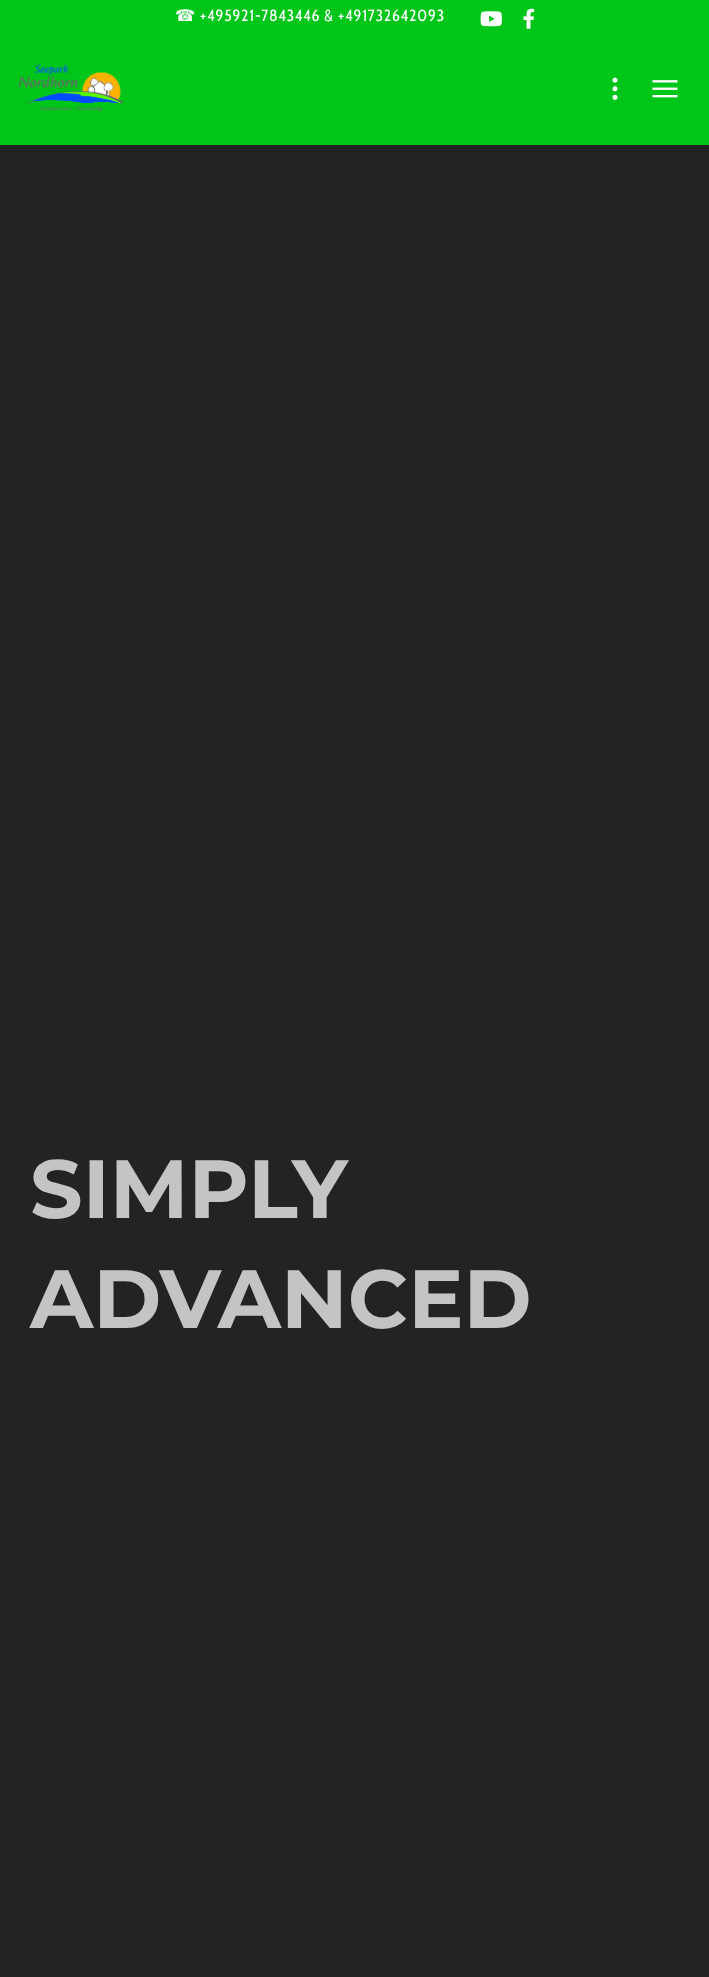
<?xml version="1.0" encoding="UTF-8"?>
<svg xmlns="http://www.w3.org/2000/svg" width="709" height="1977">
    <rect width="100%" height="100%" fill="#00C61A"/>
    <text x="175" y="21" font-family="DejaVu Sans" font-size="16.25" letter-spacing="0.9" fill="#FFFFFF">☎</text>
    <text x="200" y="21" font-family="Cabin Condensed" font-size="16.25" letter-spacing="0.9" fill="#FFFFFF">+495921-7843446 &amp; +491732642093</text>
    <image x="480" y="11" width="22" height="16" href="img_01.png"/>
    <image x="523" y="8" width="12" height="21" href="img_02.png"/>
    <image x="18" y="64" width="106" height="48" href="img_03.png"/>
    <image x="612" y="77" width="6" height="23" href="img_04.png"/>
    <image x="652" y="80" width="26" height="18" href="img_05.png"/>
    <rect x="0" y="145" width="709" height="1832" fill="#232323"/>
    <text font-family="Montserrat" font-size="82.5" font-weight="100" fill="#C4C4C4">
        <tspan x="30" y="1218">SIMPLY</tspan>
        <tspan x="30" y="1328">ADVANCED</tspan>
    </text>
</svg>
